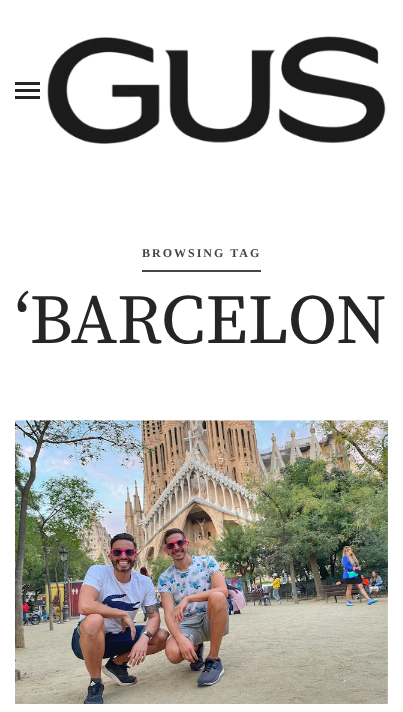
<?xml version="1.0" encoding="UTF-8"?>
<svg xmlns="http://www.w3.org/2000/svg" width="403" height="712">
    <rect width="100%" height="100%" fill="#FFFFFF"/>
    <rect x="15" y="82" width="25" height="3" fill="#252525"/>
    <rect x="15" y="89" width="25" height="3" fill="#252525"/>
    <rect x="15" y="96" width="25" height="3" fill="#252525"/>
    <image x="47" y="36" width="339" height="109" href="img_01.png"/>
    <rect x="142" y="270" width="119" height="2" fill="#454545"/>
    <text x="142" y="257" font-family="Liberation Serif" font-size="12" font-weight="700" letter-spacing="2" fill="#454545">BROWSING TAG</text>
    <text x="15" y="343" font-family="Source Serif Pro" font-size="70" fill="#252525">‘BARCELON</text>
    <image x="15" y="420" width="373" height="284" href="img_02.png"/>
</svg>
